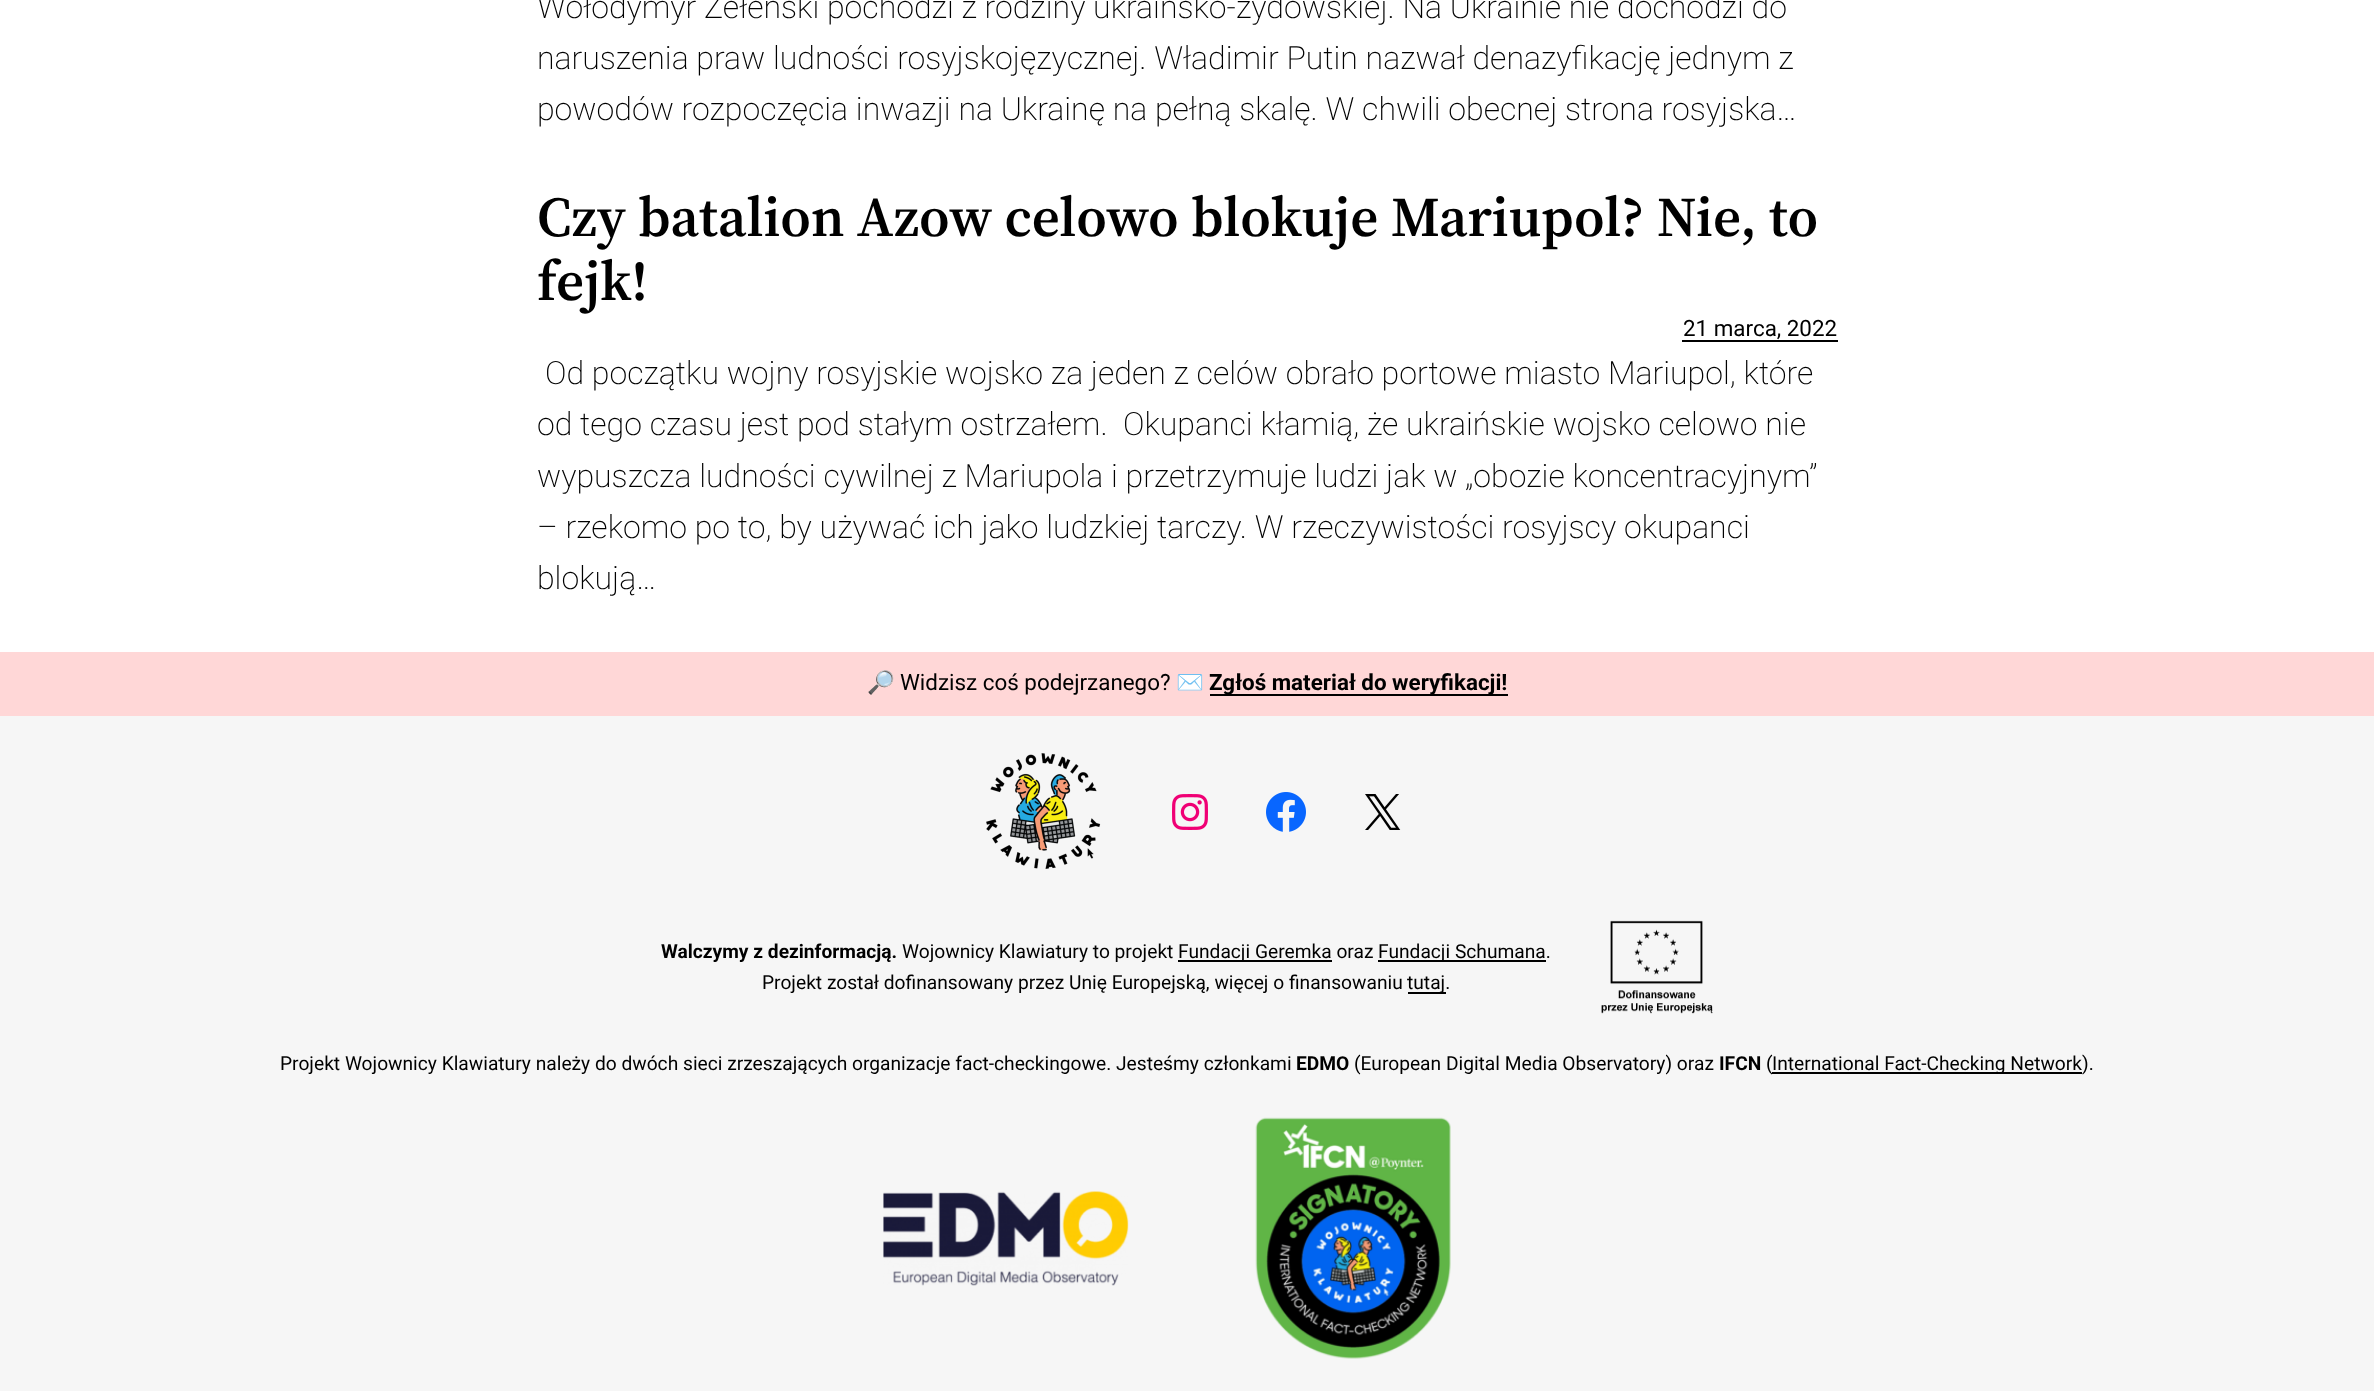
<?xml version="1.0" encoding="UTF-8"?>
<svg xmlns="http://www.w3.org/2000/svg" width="2374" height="1391">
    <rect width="100%" height="100%" fill="#FFFFFF"/>
    <text font-family="Roboto" font-size="32" font-weight="200" fill="#000000">
        <tspan x="537" y="18">Wołodymyr Zełenski pochodzi z rodziny ukraińsko-żydowskiej. Na Ukrainie nie dochodzi do</tspan>
        <tspan x="537" y="69">naruszenia praw ludności rosyjskojęzycznej. Władimir Putin nazwał denazyfikację jednym z</tspan>
        <tspan x="537" y="120">powodów rozpoczęcia inwazji na Ukrainę na pełną skalę. W chwili obecnej strona rosyjska…</tspan>
    </text>
    <text font-family="'Source Serif 4'" font-size="56" font-weight="600" fill="#000000">
        <tspan x="537" y="236">Czy batalion Azow celowo blokuje Mariupol? Nie, to</tspan>
        <tspan x="537" y="300">fejk!</tspan>
    </text>
    <text x="1683" y="336" font-family="Roboto" font-size="22.4" fill="#000000">21 marca, 2022</text>
    <rect x="1682" y="340" width="156" height="2" fill="#000000"/>
    <text x="545" y="384" font-family="Roboto" font-size="32" font-weight="200" fill="#000000">Od początku wojny rosyjskie wojsko za jeden z celów obrało portowe miasto Mariupol, które</text>
    <text font-family="Roboto" font-size="32" font-weight="200" fill="#000000" xml:space="preserve"><tspan x="537" y="435">od tego czasu jest pod stałym ostrzałem.  Okupanci kłamią, że ukraińskie wojsko celowo nie</tspan><tspan x="537" y="487">wypuszcza ludności cywilnej z Mariupola i przetrzymuje ludzi jak w „obozie koncentracyjnym”</tspan><tspan x="537" y="538">– rzekomo po to, by używać ich jako ludzkiej tarczy. W rzeczywistości rosyjscy okupanci</tspan><tspan x="537" y="589">blokują…</tspan></text>
    <rect x="0" y="652" width="2374" height="64" fill="#FFD7D7"/>
    <text x="867" y="690" font-family="Noto Color Emoji" font-size="22.4" fill="#000000">🔎</text>
    <text x="900" y="690" font-family="Roboto" font-size="22.4" fill="#000000">Widzisz coś podejrzanego?</text>
    <text x="1176" y="690" font-family="Noto Color Emoji" font-size="22.4" fill="#000000">✉️</text>
    <rect x="1210" y="694" width="298" height="2" fill="#000000"/>
    <text x="1209" y="690" font-family="Roboto" font-size="22.4" font-weight="700" fill="#000000">Zgłoś materiał do weryfikacji!</text>
    <rect x="0" y="716" width="2374" height="675" fill="#F6F6F6"/>
    <image x="986" y="753" width="115" height="116" href="img_01.png"/>
    <image x="1172" y="794" width="36" height="36" href="img_02.png"/>
    <image x="1266" y="792" width="40" height="40" href="img_03.png"/>
    <image x="1365" y="794" width="36" height="36" href="img_04.png"/>
    <text x="661" y="958" font-family="Roboto" font-size="19.2" font-weight="700" fill="#000000">Walczymy z dezinformacją.</text>
    <text x="902" y="958" font-family="Roboto" font-size="19.2" fill="#000000">Wojownicy Klawiatury to projekt</text>
    <rect x="1178" y="960" width="154" height="2" fill="#000000"/>
    <text x="1178" y="958" font-family="Roboto" font-size="19.2" fill="#000000">Fundacji Geremka oraz</text>
    <rect x="1378" y="960" width="168" height="2" fill="#000000"/>
    <text x="1378" y="958" font-family="Roboto" font-size="19.2" fill="#000000">Fundacji Schumana.</text>
    <text x="762" y="989" font-family="Roboto" font-size="19.2" fill="#000000">Projekt został dofinansowany przez Unię Europejską, więcej o finansowaniu</text>
    <rect x="1408" y="992" width="38" height="2" fill="#000000"/>
    <text x="1407" y="989" font-family="Roboto" font-size="19.2" fill="#000000">tutaj.</text>
    <image x="1601" y="920" width="112" height="94" href="img_05.png"/>
    <text x="280" y="1070" font-family="Roboto" font-size="19.2" fill="#000000">Projekt Wojownicy Klawiatury należy do dwóch sieci zrzeszających organizacje fact-checkingowe. Jesteśmy członkami</text>
    <text x="1296" y="1070" font-family="Roboto" font-size="19.2" font-weight="700" fill="#000000">EDMO</text>
    <text x="1354" y="1070" font-family="Roboto" font-size="19.2" fill="#000000">(European Digital Media Observatory) oraz</text>
    <text x="1719" y="1070" font-family="Roboto" font-size="19.2" font-weight="700" fill="#000000">IFCN</text>
    <text x="1766" y="1070" font-family="Roboto" font-size="19.2" fill="#000000">(</text>
    <rect x="1772" y="1072" width="310" height="2" fill="#000000"/>
    <text x="1772" y="1070" font-family="Roboto" font-size="19.2" fill="#000000">International Fact-Checking Network).</text>
    <image x="883" y="1191" width="246" height="95" href="img_06.png"/>
    <image x="1255" y="1117" width="196" height="242" href="img_07.png"/>
</svg>
